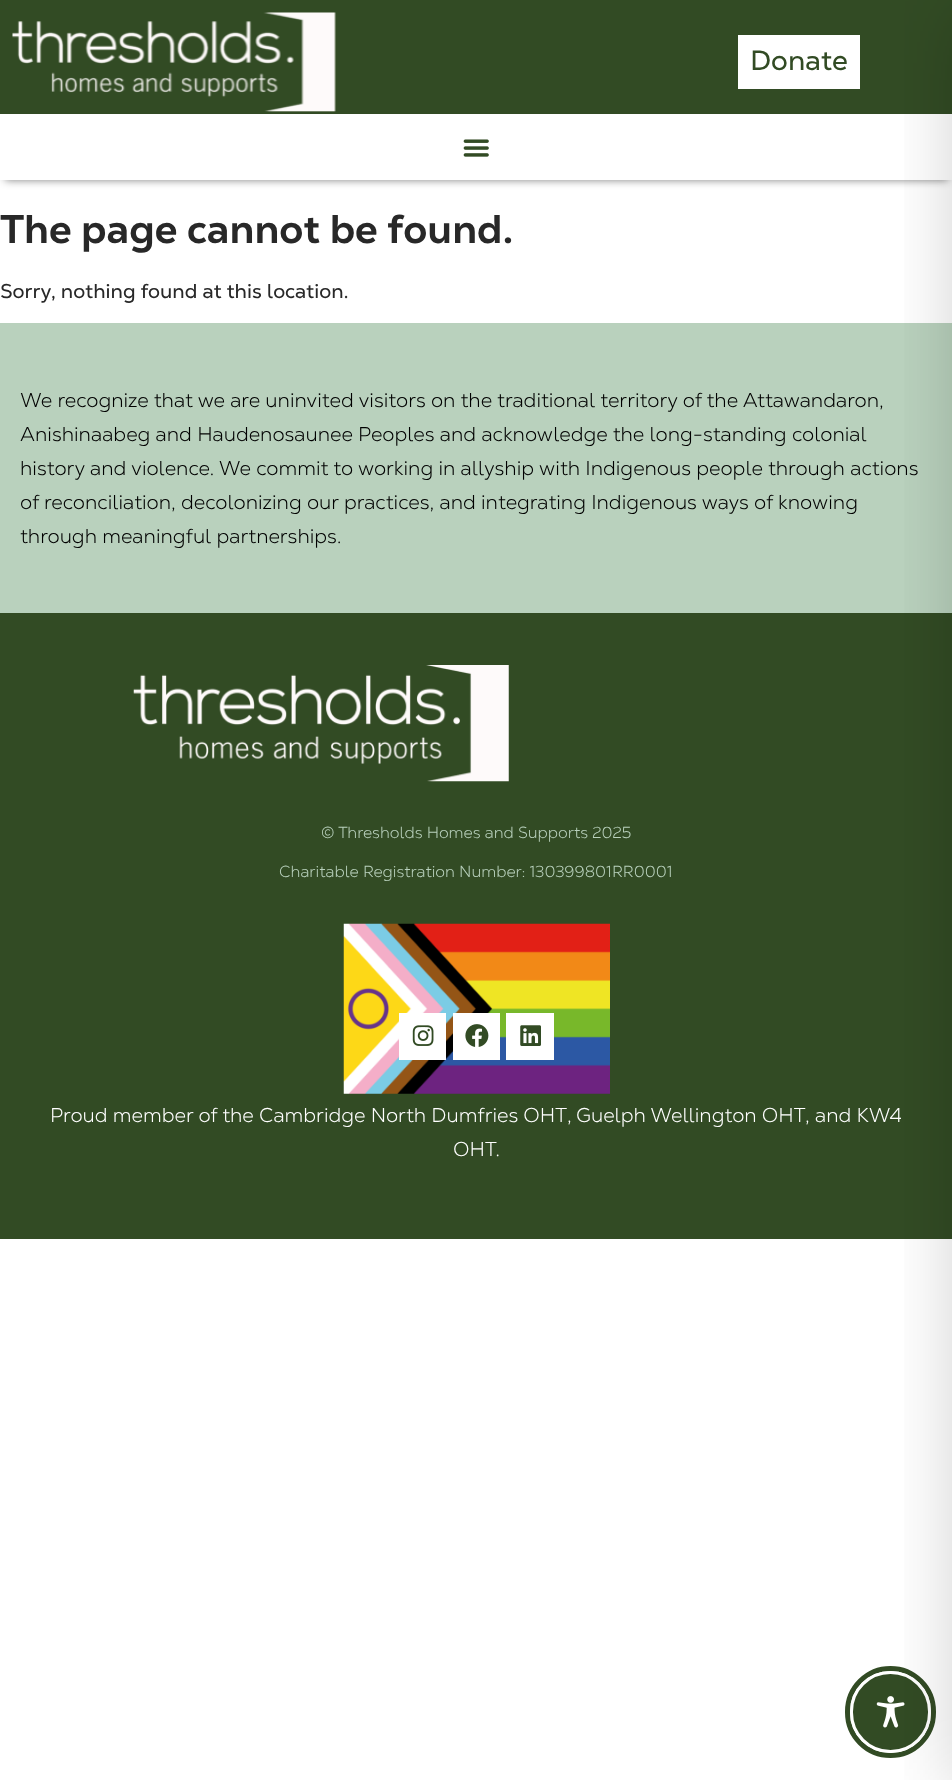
<?xml version="1.0" encoding="UTF-8"?>
<svg xmlns="http://www.w3.org/2000/svg" width="952" height="1780">
    <defs>
        <filter id="blur1" x="-50%" y="-200%" width="200%" height="500%"><feGaussianBlur stdDeviation="4.5"/></filter>
        <filter id="blur2" x="-50%" y="-200%" width="200%" height="500%"><feGaussianBlur stdDeviation="37.5"/></filter>
    </defs>
    <rect width="100%" height="100%" fill="#FFFFFF"/>
    <rect x="0" y="0" width="952" height="114" fill="#324B24"/>
    <image x="12" y="12" width="324" height="100" href="img_01.png"/>
    <rect x="738" y="35" width="122" height="54" fill="#FFFFFF"/>
    <text x="750" y="70" font-family="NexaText" font-size="28" fill="#324B24">Donate</text>
    <rect x="5" y="124" width="943" height="56" fill="#000000" fill-opacity="0.5" filter="url(#blur1)"/>
    <rect x="0" y="115" width="952" height="65" fill="#FFFFFF"/>
    <image x="463" y="139" width="26" height="18" href="img_02.png"/>
    <rect x="0" y="323" width="952" height="290" fill="#B9D1BD"/>
    <rect x="0" y="613" width="952" height="626" fill="#324B24"/>
    <rect x="847.5" y="1668.5" width="86" height="87" rx="43" fill="none" stroke="#324B24" stroke-width="5"/>
    <rect x="851.5" y="1672.5" width="78" height="79" rx="39" fill="#324B24" stroke="#FFFFFF" stroke-width="3"/>
    <image x="876" y="1696" width="29" height="32" href="img_08.png"/>
    <rect x="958" y="13" width="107" height="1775" fill="#000000" fill-opacity="0.2" filter="url(#blur2)"/>
    <text x="0" y="243" font-family="NexaText" font-size="40" font-weight="800" fill="#282828">The page cannot be found.</text>
    <text x="0" y="298" font-family="NexaText" font-size="20" fill="#282828">Sorry, nothing found at this location.</text>
    <text font-family="NexaText" font-size="20" font-weight="300" fill="#000000">
        <tspan x="20" y="407">We recognize that we are uninvited visitors on the traditional territory of the Attawandaron,</tspan>
        <tspan x="20" y="441">Anishinaabeg and Haudenosaunee Peoples and acknowledge the long-standing colonial</tspan>
        <tspan x="20" y="475">history and violence. We commit to working in allyship with Indigenous people through actions</tspan>
        <tspan x="20" y="509">of reconciliation, decolonizing our practices, and integrating Indigenous ways of knowing</tspan>
        <tspan x="20" y="543">through meaningful partnerships.</tspan>
    </text>
    <image x="133" y="665" width="376" height="117" href="img_03.png"/>
    <text x="321" y="838" font-family="NexaText" font-size="16" font-weight="300" fill="#B9D1BD">© Thresholds Homes and Supports 2025</text>
    <text x="279" y="877" font-family="NexaText" font-size="16" font-weight="300" fill="#B9D1BD">Charitable Registration Number: 130399801RR0001</text>
    <image x="343" y="923" width="267" height="171" href="img_04.png"/>
    <rect x="399" y="1013" width="47" height="47" fill="#FFFFFF"/>
    <image x="412" y="1025" width="22" height="21" href="img_05.png"/>
    <rect x="453" y="1013" width="47" height="47" fill="#FFFFFF"/>
    <image x="465" y="1024" width="24" height="23" href="img_06.png"/>
    <rect x="506" y="1013" width="48" height="47" fill="#FFFFFF"/>
    <image x="520" y="1025" width="21" height="21" href="img_07.png"/>
    <text x="50" y="1122" font-family="NexaText" font-size="20" font-weight="300" fill="#FFFFFF">Proud member of the</text>
    <text x="259" y="1122" font-family="NexaText" font-size="20" font-weight="300" fill="#FFFFFF">Cambridge North Dumfries OHT</text>
    <text x="567" y="1122" font-family="NexaText" font-size="20" font-weight="300" fill="#FFFFFF">,</text>
    <text x="576" y="1122" font-family="NexaText" font-size="20" font-weight="300" fill="#FFFFFF">Guelph Wellington OHT</text>
    <text x="805" y="1122" font-family="NexaText" font-size="20" font-weight="300" fill="#FFFFFF">, and KW4</text>
    <text x="453" y="1156" font-family="NexaText" font-size="20" font-weight="300" fill="#FFFFFF">OHT.</text>
</svg>
